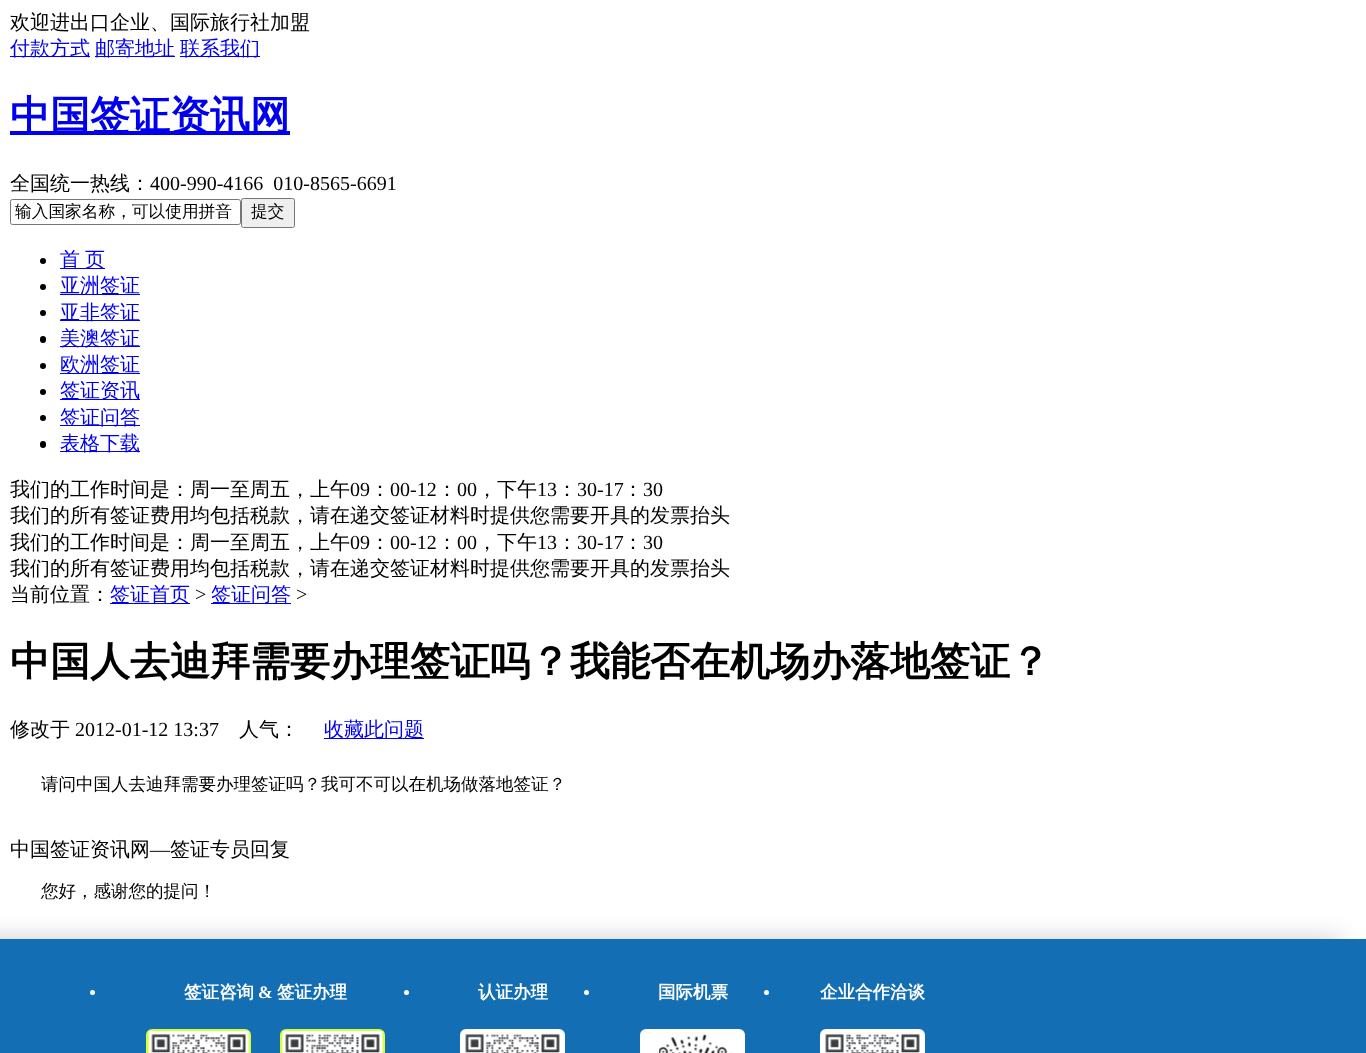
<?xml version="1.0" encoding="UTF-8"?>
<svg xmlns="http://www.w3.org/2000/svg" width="1366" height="1053">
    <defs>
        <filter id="blur1" x="-50%" y="-200%" width="200%" height="500%"><feGaussianBlur stdDeviation="12.5"/></filter>
    </defs>
    <rect width="100%" height="100%" fill="#FFFFFF"/>
    <text x="10" y="29" font-family="WenQuanYi Zen Hei" font-size="20" font-weight="500" fill="#000000">欢迎进出口企业、国际旅行社加盟</text>
    <rect x="10" y="56" width="80" height="1" fill="#0000EE"/>
    <text x="10" y="55" font-family="WenQuanYi Zen Hei" font-size="20" font-weight="500" fill="#0000EE">付款方式</text>
    <rect x="95" y="56" width="80" height="1" fill="#0000EE"/>
    <text x="95" y="55" font-family="WenQuanYi Zen Hei" font-size="20" font-weight="500" fill="#0000EE">邮寄地址</text>
    <rect x="180" y="56" width="80" height="1" fill="#0000EE"/>
    <text x="180" y="55" font-family="WenQuanYi Zen Hei" font-size="20" font-weight="500" fill="#0000EE">联系我们</text>
    <rect x="10" y="131" width="280" height="4" fill="#0000EE"/>
    <text x="10" y="129" font-family="WenQuanYi Zen Hei" font-size="40" font-weight="700" fill="#0000EE">中国签证资讯网</text>
    <text x="10" y="190" font-family="WenQuanYi Zen Hei" font-size="20" font-weight="500" fill="#000000">全国统一热线：</text>
    <text x="150" y="190" font-family="Liberation Serif" font-size="20" fill="#000000" xml:space="preserve">400-990-4166  010-8565-6691</text>
    <rect x="10.5" y="199.5" width="230" height="25" rx="2" fill="none" stroke="#767676"/>
    <text x="15" y="217" font-family="WenQuanYi Zen Hei" font-size="16.7" font-weight="500" fill="#000000">输入国家名称，可以使用拼音</text>
    <rect x="241.5" y="198.5" width="53" height="29" rx="2" fill="#EFEFEF" stroke="#767676"/>
    <text x="251" y="217" font-family="WenQuanYi Zen Hei" font-size="16.7" font-weight="500" fill="#000000">提交</text>
    <circle cx="43" cy="261" r="3" fill="#000000"/>
    <rect x="60" y="268" width="45" height="1" fill="#0000EE"/>
    <text x="60" y="266" word-spacing="-1" font-family="WenQuanYi Zen Hei" font-size="20" font-weight="500" fill="#0000EE">首 页</text>
    <circle cx="43" cy="287" r="3" fill="#000000"/>
    <rect x="60" y="294" width="80" height="1" fill="#0000EE"/>
    <text x="60" y="292" font-family="WenQuanYi Zen Hei" font-size="20" font-weight="500" fill="#0000EE">亚洲签证</text>
    <circle cx="43" cy="313" r="3" fill="#000000"/>
    <rect x="60" y="320" width="80" height="1" fill="#0000EE"/>
    <text x="60" y="319" font-family="WenQuanYi Zen Hei" font-size="20" font-weight="500" fill="#0000EE">亚非签证</text>
    <rect x="40" y="336" width="6" height="7" rx="3" fill="#000000"/>
    <rect x="60" y="346" width="80" height="1" fill="#0000EE"/>
    <text x="60" y="345" font-family="WenQuanYi Zen Hei" font-size="20" font-weight="500" fill="#0000EE">美澳签证</text>
    <circle cx="43" cy="366" r="3" fill="#000000"/>
    <rect x="60" y="373" width="80" height="1" fill="#0000EE"/>
    <text x="60" y="371" font-family="WenQuanYi Zen Hei" font-size="20" font-weight="500" fill="#0000EE">欧洲签证</text>
    <circle cx="43" cy="392" r="3" fill="#000000"/>
    <rect x="60" y="399" width="80" height="1" fill="#0000EE"/>
    <text x="60" y="397" font-family="WenQuanYi Zen Hei" font-size="20" font-weight="500" fill="#0000EE">签证资讯</text>
    <circle cx="43" cy="418" r="3" fill="#000000"/>
    <rect x="60" y="425" width="80" height="1" fill="#0000EE"/>
    <text x="60" y="424" font-family="WenQuanYi Zen Hei" font-size="20" font-weight="500" fill="#0000EE">签证问答</text>
    <rect x="40" y="441" width="6" height="7" rx="3" fill="#000000"/>
    <rect x="60" y="451" width="80" height="1" fill="#0000EE"/>
    <text x="60" y="450" font-family="WenQuanYi Zen Hei" font-size="20" font-weight="500" fill="#0000EE">表格下载</text>
    <text x="10" y="496" font-family="WenQuanYi Zen Hei" font-size="20" font-weight="500" fill="#000000">我们的工作时间是：周一至周五，上午</text>
    <text x="350" y="496" font-family="Liberation Serif" font-size="20" fill="#000000">09</text>
    <text x="370" y="496" font-family="WenQuanYi Zen Hei" font-size="20" font-weight="500" fill="#000000">：</text>
    <text x="390" y="496" font-family="Liberation Serif" font-size="20" fill="#000000">00-12</text>
    <text x="437" y="496" font-family="WenQuanYi Zen Hei" font-size="20" font-weight="500" fill="#000000">：</text>
    <text x="457" y="496" font-family="Liberation Serif" font-size="20" fill="#000000">00</text>
    <text x="477" y="496" font-family="WenQuanYi Zen Hei" font-size="20" font-weight="500" fill="#000000">，下午</text>
    <text x="537" y="496" font-family="Liberation Serif" font-size="20" fill="#000000">13</text>
    <text x="557" y="496" font-family="WenQuanYi Zen Hei" font-size="20" font-weight="500" fill="#000000">：</text>
    <text x="577" y="496" font-family="Liberation Serif" font-size="20" fill="#000000">30-17</text>
    <text x="623" y="496" font-family="WenQuanYi Zen Hei" font-size="20" font-weight="500" fill="#000000">：</text>
    <text x="643" y="496" font-family="Liberation Serif" font-size="20" fill="#000000">30</text>
    <text font-family="WenQuanYi Zen Hei" font-size="20" font-weight="500" fill="#000000">
        <tspan x="10" y="522">我们的所有签证费用均包括税款，请在递交签证材料时提供您需要开具的发票抬头</tspan>
        <tspan x="10" y="549">我们的工作时间是：周一至周五，上午</tspan>
    </text>
    <text x="350" y="549" font-family="Liberation Serif" font-size="20" fill="#000000">09</text>
    <text x="370" y="549" font-family="WenQuanYi Zen Hei" font-size="20" font-weight="500" fill="#000000">：</text>
    <text x="390" y="549" font-family="Liberation Serif" font-size="20" fill="#000000">00-12</text>
    <text x="437" y="549" font-family="WenQuanYi Zen Hei" font-size="20" font-weight="500" fill="#000000">：</text>
    <text x="457" y="549" font-family="Liberation Serif" font-size="20" fill="#000000">00</text>
    <text x="477" y="549" font-family="WenQuanYi Zen Hei" font-size="20" font-weight="500" fill="#000000">，下午</text>
    <text x="537" y="549" font-family="Liberation Serif" font-size="20" fill="#000000">13</text>
    <text x="557" y="549" font-family="WenQuanYi Zen Hei" font-size="20" font-weight="500" fill="#000000">：</text>
    <text x="577" y="549" font-family="Liberation Serif" font-size="20" fill="#000000">30-17</text>
    <text x="623" y="549" font-family="WenQuanYi Zen Hei" font-size="20" font-weight="500" fill="#000000">：</text>
    <text x="643" y="549" font-family="Liberation Serif" font-size="20" fill="#000000">30</text>
    <text font-family="WenQuanYi Zen Hei" font-size="20" font-weight="500" fill="#000000">
        <tspan x="10" y="575">我们的所有签证费用均包括税款，请在递交签证材料时提供您需要开具的发票抬头</tspan>
        <tspan x="10" y="601">当前位置：</tspan>
    </text>
    <rect x="110" y="603" width="80" height="1" fill="#0000EE"/>
    <text x="110" y="601" font-family="WenQuanYi Zen Hei" font-size="20" font-weight="500" fill="#0000EE">签证首页</text>
    <text x="195" y="601" font-family="Liberation Serif" font-size="20" fill="#000000">&gt;</text>
    <rect x="211" y="603" width="80" height="1" fill="#0000EE"/>
    <text x="211" y="601" font-family="WenQuanYi Zen Hei" font-size="20" font-weight="500" fill="#0000EE">签证问答</text>
    <text x="296" y="601" font-family="Liberation Serif" font-size="20" fill="#000000">&gt;</text>
    <text x="10" y="675" font-family="WenQuanYi Zen Hei" font-size="40" font-weight="700" fill="#000000">中国人去迪拜需要办理签证吗？我能否在机场办落地签证？</text>
    <text x="10" y="736" font-family="WenQuanYi Zen Hei" font-size="20" font-weight="500" fill="#000000">修改于</text>
    <text x="75" y="736" font-family="Liberation Serif" font-size="20" fill="#000000">2012-01-12 13:37</text>
    <text x="239" y="736" font-family="WenQuanYi Zen Hei" font-size="20" font-weight="500" fill="#000000">人气：</text>
    <rect x="324" y="738" width="100" height="1" fill="#0000EE"/>
    <text x="324" y="736" font-family="WenQuanYi Zen Hei" font-size="20" font-weight="500" fill="#0000EE">收藏此问题</text>
    <text x="41" y="790" font-family="WenQuanYi Zen Hei" font-size="17.5" font-weight="500" fill="#000000">请问中国人去迪拜需要办理签证吗？我可不可以在机场做落地签证？</text>
    <text x="10" y="856" font-family="WenQuanYi Zen Hei" font-size="20" font-weight="500" fill="#000000">中国签证资讯网</text>
    <text x="150" y="856" font-family="Liberation Serif" font-size="20" fill="#000000">—</text>
    <text x="170" y="856" font-family="WenQuanYi Zen Hei" font-size="20" font-weight="500" fill="#000000">签证专员回复</text>
    <text x="41" y="897" font-family="WenQuanYi Zen Hei" font-size="17.5" font-weight="500" fill="#000000">您好，感谢您的提问！</text>
    <rect x="-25" y="939" width="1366" height="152" fill="#000000" fill-opacity="0.2" filter="url(#blur1)"/>
    <rect x="0" y="939" width="1366" height="114" fill="#136EB4"/>
    <circle cx="92.5" cy="992.5" r="2.5" fill="#FFFFFF"/>
    <text x="184" y="998" font-family="WenQuanYi Zen Hei" font-size="17.5" font-weight="700" fill="#FFFFFF">签证咨询</text>
    <text x="258" y="998" font-family="Liberation Serif" font-size="17.5" font-weight="700" fill="#FFFFFF">&amp;</text>
    <text x="277" y="998" font-family="WenQuanYi Zen Hei" font-size="17.5" font-weight="700" fill="#FFFFFF">签证办理</text>
    <rect x="146" y="1029" width="105" height="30" rx="6" fill="#D7FF36"/>
    <image x="148" y="1031" width="102" height="22" href="img_01.png"/>
    <rect x="280" y="1029" width="105" height="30" rx="6" fill="#D7FF36"/>
    <image x="282" y="1031" width="101" height="22" href="img_02.png"/>
    <circle cx="406.5" cy="992.5" r="2.5" fill="#FFFFFF"/>
    <text x="478" y="998" font-family="WenQuanYi Zen Hei" font-size="17.5" font-weight="700" fill="#FFFFFF">认证办理</text>
    <rect x="460" y="1029" width="105" height="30" rx="6" fill="#FFFFFF"/>
    <image x="465" y="1034" width="95" height="19" href="img_03.png"/>
    <circle cx="586.5" cy="992.5" r="2.5" fill="#FFFFFF"/>
    <text x="658" y="998" font-family="WenQuanYi Zen Hei" font-size="17.5" font-weight="700" fill="#FFFFFF">国际机票</text>
    <rect x="640" y="1029" width="105" height="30" rx="6" fill="#FFFFFF"/>
    <image x="657" y="1034" width="76" height="19" href="img_04.png"/>
    <circle cx="766.5" cy="992.5" r="2.5" fill="#FFFFFF"/>
    <text x="820" y="998" font-family="WenQuanYi Zen Hei" font-size="17.5" font-weight="700" fill="#FFFFFF">企业合作洽谈</text>
    <rect x="820" y="1029" width="105" height="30" rx="6" fill="#FFFFFF"/>
    <image x="825" y="1034" width="95" height="19" href="img_05.png"/>
</svg>
